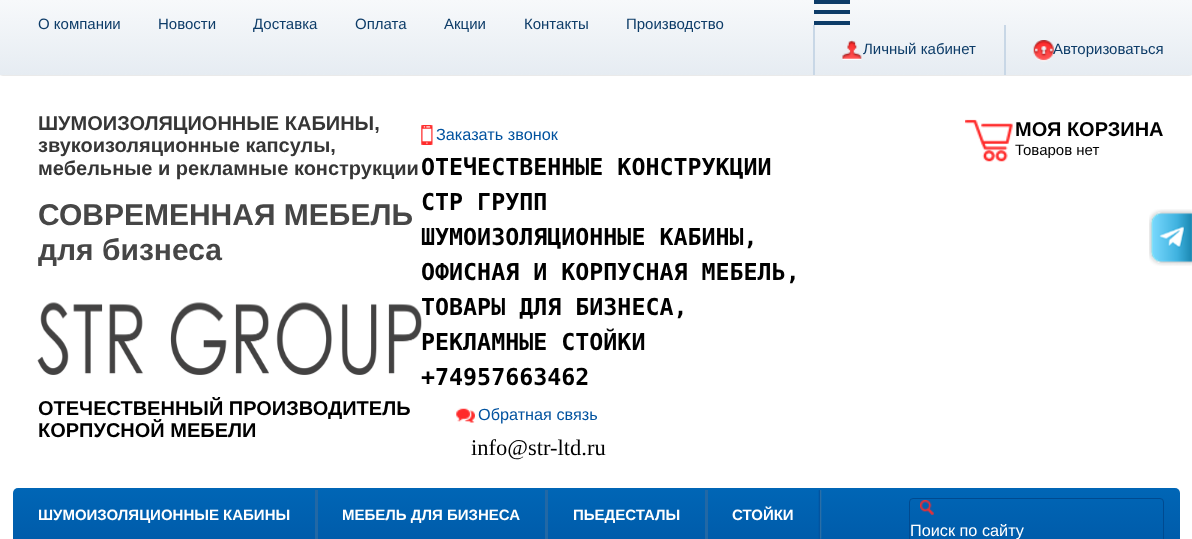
<?xml version="1.0" encoding="UTF-8"?>
<svg xmlns="http://www.w3.org/2000/svg" width="1192" height="539">
    <defs>
        <filter id="blur1" x="-50%" y="-200%" width="200%" height="500%"><feGaussianBlur stdDeviation="1"/></filter>
        <linearGradient id="g1" gradientUnits="userSpaceOnUse" x1="596" y1="0" x2="596" y2="75"><stop offset="0" stop-color="#F7F9FB"/><stop offset="1" stop-color="#E6ECF2"/></linearGradient>
        <linearGradient id="g2" gradientUnits="userSpaceOnUse" x1="596" y1="487" x2="596" y2="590"><stop offset="0" stop-color="#0066B6"/><stop offset="1" stop-color="#00529F"/></linearGradient>
    </defs>
    <rect width="100%" height="100%" fill="#FFFFFF"/>
    <rect x="1" y="1" width="1190" height="73" fill="#000000" filter="url(#blur1)"/>
    <rect x="0" y="0" width="1192" height="75" fill="url(#g1)"/>
    <text x="38" y="29" font-family="Liberation Sans" font-size="15" fill="#0D3C68">О компании</text>
    <text x="158" y="29" font-family="Liberation Sans" font-size="15" fill="#0D3C68">Новости</text>
    <text x="253" y="29" font-family="Liberation Sans" font-size="15" fill="#0D3C68">Доставка</text>
    <text x="355" y="29" font-family="Liberation Sans" font-size="15" fill="#0D3C68">Оплата</text>
    <text x="444" y="29" font-family="Liberation Sans" font-size="15" fill="#0D3C68">Акции</text>
    <text x="524" y="29" font-family="Liberation Sans" font-size="15" fill="#0D3C68">Контакты</text>
    <text x="626" y="29" font-family="Liberation Sans" font-size="15" fill="#0D3C68">Производство</text>
    <rect x="814" y="0" width="36" height="4" fill="#0D3C68"/>
    <rect x="814" y="10" width="36" height="4" fill="#0D3C68"/>
    <rect x="814" y="21" width="36" height="4" fill="#0D3C68"/>
    <rect x="813" y="25" width="2" height="50" fill="#C8D7E6"/>
    <image x="842" y="40" width="20" height="20" href="img_01.png"/>
    <text x="863" y="54" font-family="Liberation Sans" font-size="15" fill="#0D3C68">Личный кабинет</text>
    <rect x="1004" y="25" width="2" height="50" fill="#C8D7E6"/>
    <image x="1033" y="40" width="21" height="22" href="img_02.png"/>
    <text x="1053" y="54" font-family="Liberation Sans" font-size="15" fill="#0D3C68">Авторизоваться</text>
    <text font-family="Liberation Sans" font-size="20" font-weight="700" fill="#363636">
        <tspan x="38" y="130">ШУМОИЗОЛЯЦИОННЫЕ КАБИНЫ,</tspan>
        <tspan x="38" y="152">звукоизоляционные капсулы,</tspan>
        <tspan x="38" y="175">мебельные и рекламные конструкции</tspan>
    </text>
    <text font-family="Liberation Sans" font-size="30" font-weight="700" fill="#464646">
        <tspan x="38" y="225">СОВРЕМЕННАЯ МЕБЕЛЬ</tspan>
        <tspan x="38" y="260">для бизнеса</tspan>
    </text>
    <image x="37" y="302" width="385" height="73" href="img_03.png"/>
    <text font-family="Liberation Sans" font-size="20" font-weight="700" fill="#000000">
        <tspan x="38" y="415">ОТЕЧЕСТВЕННЫЙ ПРОИЗВОДИТЕЛЬ</tspan>
        <tspan x="38" y="437">КОРПУСНОЙ МЕБЕЛИ</tspan>
    </text>
    <image x="421" y="125" width="12" height="20" href="img_04.png"/>
    <text x="436" y="140" font-family="Liberation Sans" font-size="16.25" fill="#00529F">Заказать звонок</text>
    <text font-family="DejaVu Sans Mono" font-size="23.3" font-weight="700" fill="#000000">
        <tspan x="421" y="175">ОТЕЧЕСТВЕННЫЕ КОНСТРУКЦИИ</tspan>
        <tspan x="421" y="210">СТР ГРУПП</tspan>
        <tspan x="421" y="245">ШУМОИЗОЛЯЦИОННЫЕ КАБИНЫ,</tspan>
        <tspan x="421" y="280">ОФИСНАЯ И КОРПУСНАЯ МЕБЕЛЬ,</tspan>
        <tspan x="421" y="315">ТОВАРЫ ДЛЯ БИЗНЕСА,</tspan>
        <tspan x="421" y="350">РЕКЛАМНЫЕ СТОЙКИ</tspan>
        <tspan x="421" y="385">+74957663462</tspan>
    </text>
    <image x="456" y="408" width="19" height="15" href="img_05.png"/>
    <text x="478" y="420" font-family="Liberation Sans" font-size="16.25" fill="#00529F">Обратная связь</text>
    <text x="471" y="455" font-family="Liberation Serif" font-size="22.5" fill="#000000">info@str-ltd.ru</text>
    <image x="965" y="119" width="48" height="43" href="img_06.png"/>
    <text x="1015" y="136" font-family="Liberation Sans" font-size="20" font-weight="700" fill="#000000">МОЯ КОРЗИНА</text>
    <text x="1015" y="155" font-family="Liberation Sans" font-size="15" fill="#000000">Товаров нет</text>
    <rect x="13" y="488" width="1167" height="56" rx="5" fill="url(#g2)"/>
    <text x="38" y="520" font-family="Liberation Sans" font-size="15" font-weight="700" fill="#FFFFFF">ШУМОИЗОЛЯЦИОННЫЕ КАБИНЫ</text>
    <rect x="315" y="490" width="3" height="49" fill="#2268A5"/>
    <text x="342" y="520" font-family="Liberation Sans" font-size="15" font-weight="700" fill="#FFFFFF">МЕБЕЛЬ ДЛЯ БИЗНЕСА</text>
    <rect x="545" y="490" width="3" height="49" fill="#2268A5"/>
    <text x="573" y="520" font-family="Liberation Sans" font-size="15" font-weight="700" fill="#FFFFFF">ПЬЕДЕСТАЛЫ</text>
    <rect x="705" y="490" width="3" height="49" fill="#2268A5"/>
    <text x="732" y="520" font-family="Liberation Sans" font-size="15" font-weight="700" fill="#FFFFFF">СТОЙКИ</text>
    <image x="818" y="490" width="4" height="49" href="img_07.png"/>
    <rect x="909.5" y="498.5" width="254" height="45" rx="3.5" fill="none" stroke="#004A90"/>
    <image x="920" y="500" width="14" height="15" href="img_08.png"/>
    <text x="910" y="536" font-family="Liberation Sans" font-size="16.25" fill="#FFFFFF">Поиск по сайту</text>
    <image x="1149" y="209" width="43" height="57" href="img_09.png"/>
</svg>
